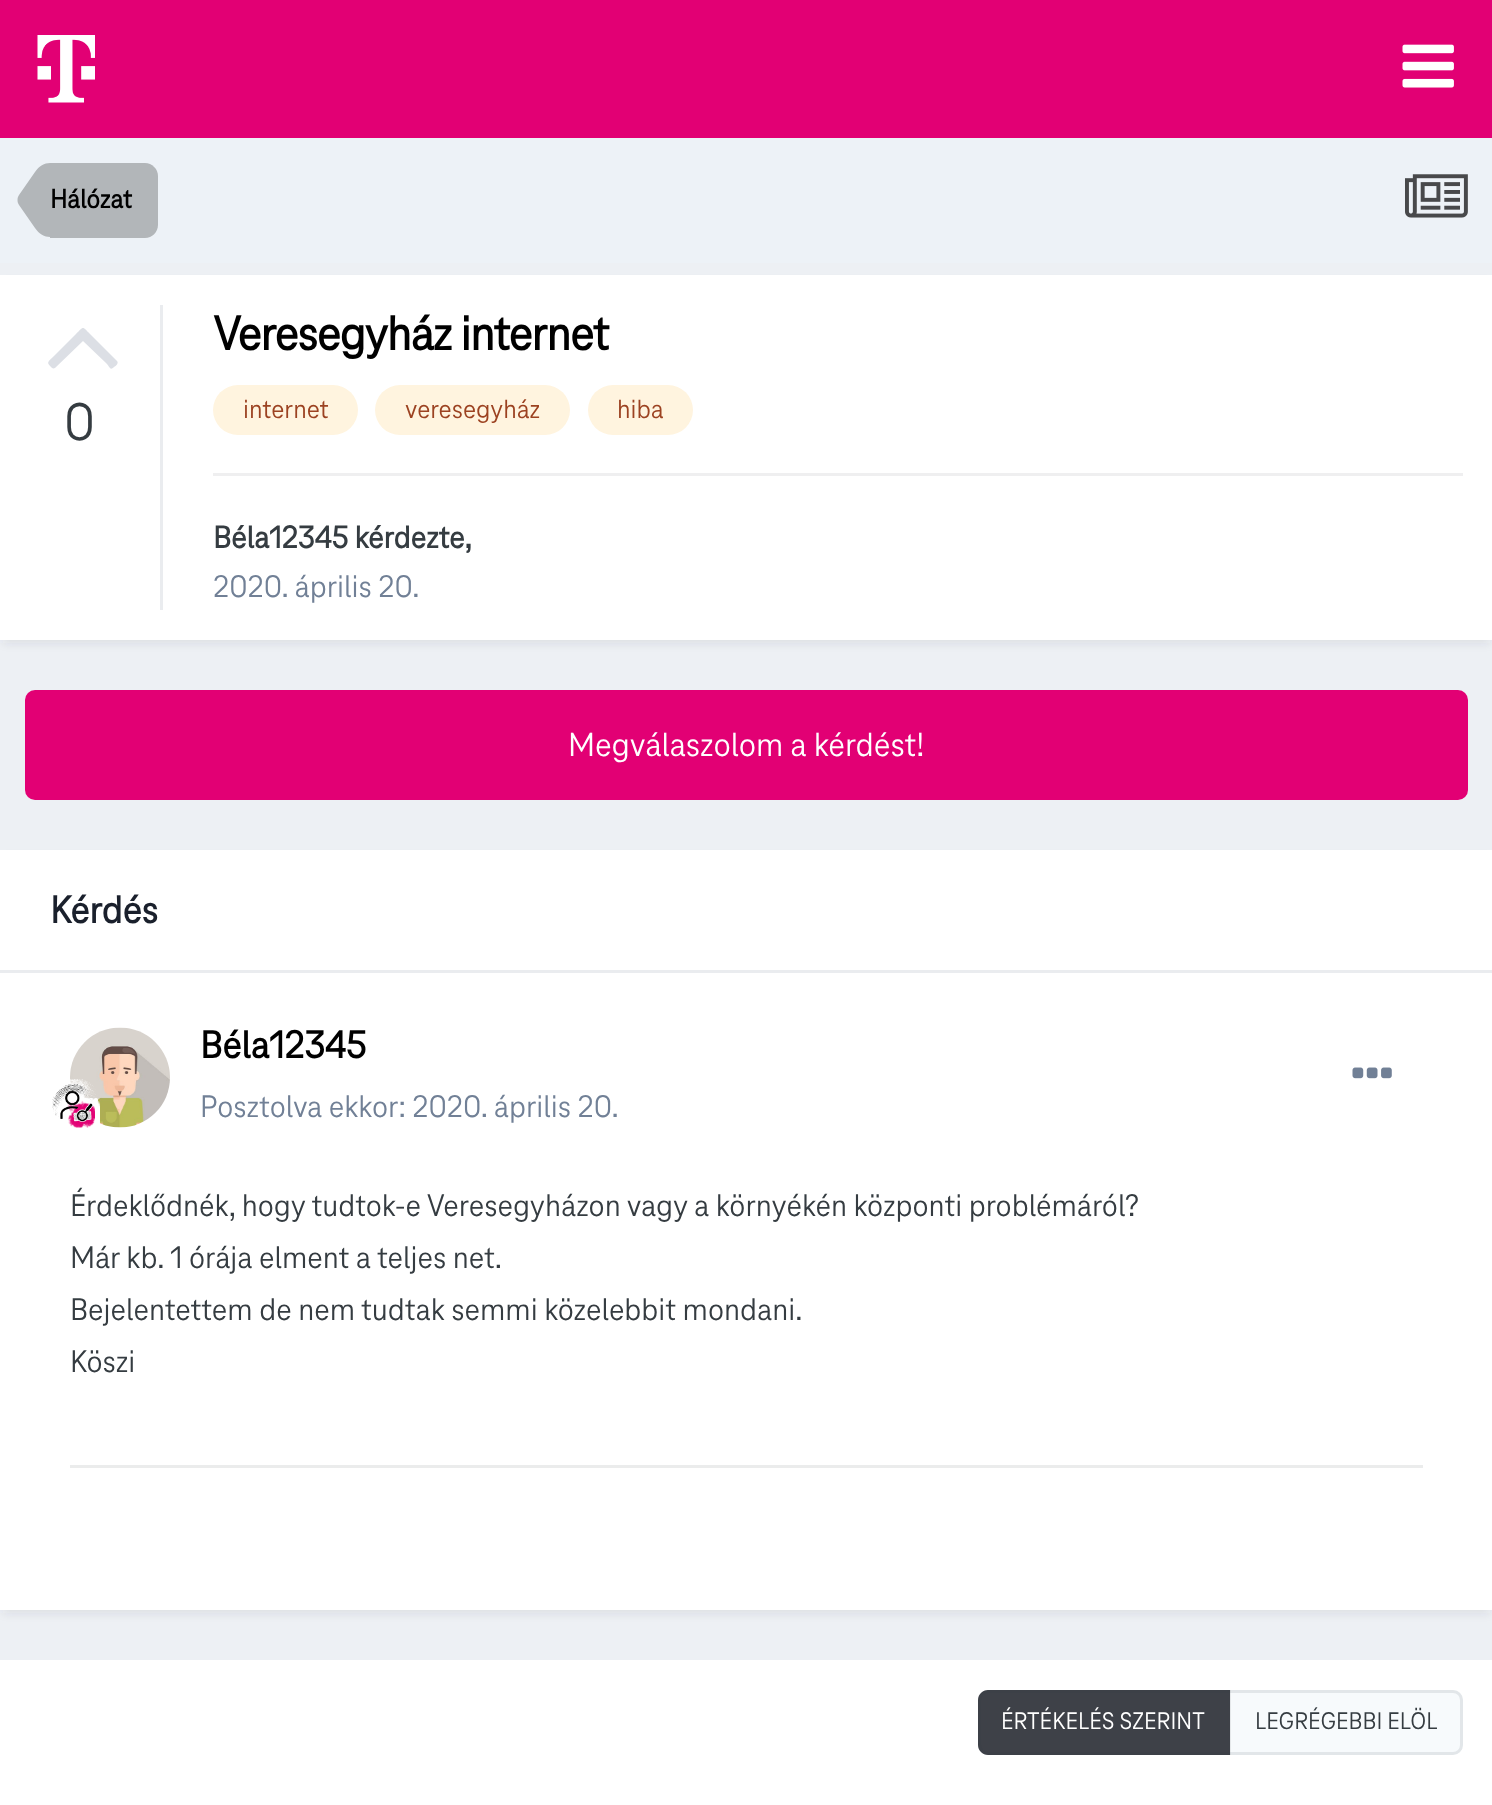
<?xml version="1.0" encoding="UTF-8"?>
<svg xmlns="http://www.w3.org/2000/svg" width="1492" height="1805">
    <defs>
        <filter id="blur1" x="-50%" y="-200%" width="200%" height="500%"><feGaussianBlur stdDeviation="5"/></filter>
    </defs>
    <rect width="100%" height="100%" fill="#EDF0F4"/>
    <rect x="0" y="0" width="1492" height="138" fill="#E20074"/>
    <image x="37" y="35" width="58" height="68" href="img_01.png"/>
    <image x="1402" y="44" width="52" height="44" href="img_02.png"/>
    <rect x="0" y="138" width="1492" height="125" fill="#EDF2F7"/>
    <path d="M 50 163 H 145 C 152 163 158 169 158 176 V 225 C 158 232 152 238 145 238 H 50 Z" fill="#B2B6B9"/>
    <path d="M 50 200 V 237 C 44.5 237 39 234 35 228 L 19 205 C 18 203.5 17.5 202 17.5 200 Z" fill="#B2B6B9"/>
    <path d="M 50 200 H 17.5 C 17.5 198 18 196.5 19 195 L 35 172 C 39 166 44.5 163 50 163 Z" fill="#B2B6B9"/>
    <text x="50" y="208" font-family="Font" font-size="27.5" font-weight="700" fill="#000000">Hálózat</text>
    <image x="1405" y="174" width="63" height="44" href="img_03.png"/>
    <rect x="3" y="283" width="1487" height="360" fill="#2D3748" fill-opacity="0.1" filter="url(#blur1)"/>
    <rect x="0" y="275" width="1492" height="365" fill="#FFFFFF"/>
    <rect x="160" y="305" width="3" height="305" fill="#EAECEF"/>
    <path d="M 117 361 C 119 363 116 366 114 367 C 110 371 110 367 106 363 L 83 341 L 55 368 C 53 369 52 368 51 367 C 46 362 48 362 54 356 L 76 334 C 84 326 82 326 90 334 Z" fill="#DCDFE5"/>
    <text x="64" y="440" font-family="Font" font-size="55" fill="#353C41">0</text>
    <text x="213" y="350" font-family="Font" font-size="50" font-weight="700" letter-spacing="-1" fill="#000000">Veresegyház internet</text>
    <rect x="213" y="385" width="145" height="50" rx="25" fill="#FFF4DF"/>
    <text x="243" y="418" font-family="Font" font-size="27.5" fill="#9C4221">internet</text>
    <rect x="375" y="385" width="195" height="50" rx="25" fill="#FFF4DF"/>
    <text x="405" y="418" font-family="Font" font-size="27.5" fill="#9C4221">veresegyház</text>
    <rect x="588" y="385" width="105" height="50" rx="25" fill="#FFF4DF"/>
    <text x="617" y="418" font-family="Font" font-size="27.5" fill="#9C4221">hiba</text>
    <rect x="213" y="473" width="1250" height="3" fill="#EFEFF0"/>
    <text x="213" y="548" font-family="Font" font-size="32.5" font-weight="700" fill="#353C41">Béla12345 kérdezte,</text>
    <text x="213" y="597" font-family="Font" font-size="32.5" fill="#718096">2020. április 20.</text>
    <rect x="25" y="690" width="1443" height="110" rx="10" fill="#E20074"/>
    <text x="568" y="756" font-family="Font" font-size="35" fill="#FFFFFF">Megválaszolom a kérdést!</text>
    <rect x="3" y="858" width="1487" height="755" fill="#2D3748" fill-opacity="0.1" filter="url(#blur1)"/>
    <rect x="0" y="850" width="1492" height="760" fill="#FFFFFF"/>
    <rect x="0" y="970" width="1492" height="3" fill="#EAECEF"/>
    <text x="50" y="923" font-family="Font" font-size="40" font-weight="700" fill="#1A202C">Kérdés</text>
    <image x="70" y="1027" width="100" height="101" href="img_04.png"/>
    <image x="52" y="1079" width="48" height="49" href="img_05.png"/>
    <text x="200" y="1058" font-family="Font" font-size="40" font-weight="700" fill="#000000">Béla12345</text>
    <text x="200" y="1117" font-family="Font" font-size="32.5" fill="#718096">Posztolva ekkor: 2020. április 20.</text>
    <image x="1352" y="1067" width="40" height="12" href="img_06.png"/>
    <text font-family="Font" font-size="32.5" fill="#353C41">
        <tspan x="70" y="1216">Érdeklődnék, hogy tudtok-e Veresegyházon vagy a környékén központi problémáról?</tspan>
        <tspan x="70" y="1268">Már kb. 1 órája elment a teljes net.</tspan>
        <tspan x="70" y="1320">Bejelentettem de nem tudtak semmi közelebbit mondani.</tspan>
        <tspan x="70" y="1372">Köszi</tspan>
    </text>
    <rect x="70" y="1465" width="1353" height="3" fill="#EBECEC"/>
    <rect x="0" y="1660" width="1492" height="145" fill="#FFFFFF"/>
    <path d="M 988 1690 H 1230 V 1755 H 988 C 982.5 1755 978 1750.5 978 1745 V 1700 C 978 1694.5 982.5 1690 988 1690 Z" fill="#3E4148"/>
    <path d="M 1230 1690 H 1453 C 1458.5 1690 1463 1694.5 1463 1700 V 1745 C 1463 1750.5 1458.5 1755 1453 1755 H 1230 Z" fill="#F7FAFC"/>
    <rect x="1230" y="1690" width="1" height="65" fill="#E5E8EA"/>
    <rect x="979.5" y="1691.5" width="482" height="62" rx="8.5" fill="none" stroke="#353C41" stroke-opacity="0.1" stroke-width="3"/>
    <text x="1001" y="1729" font-family="Font" font-size="25" fill="#FFFFFF">ÉRTÉKELÉS SZERINT</text>
    <text x="1255" y="1729" font-family="Font" font-size="25" fill="#353C41">LEGRÉGEBBI ELÖL</text>
</svg>
